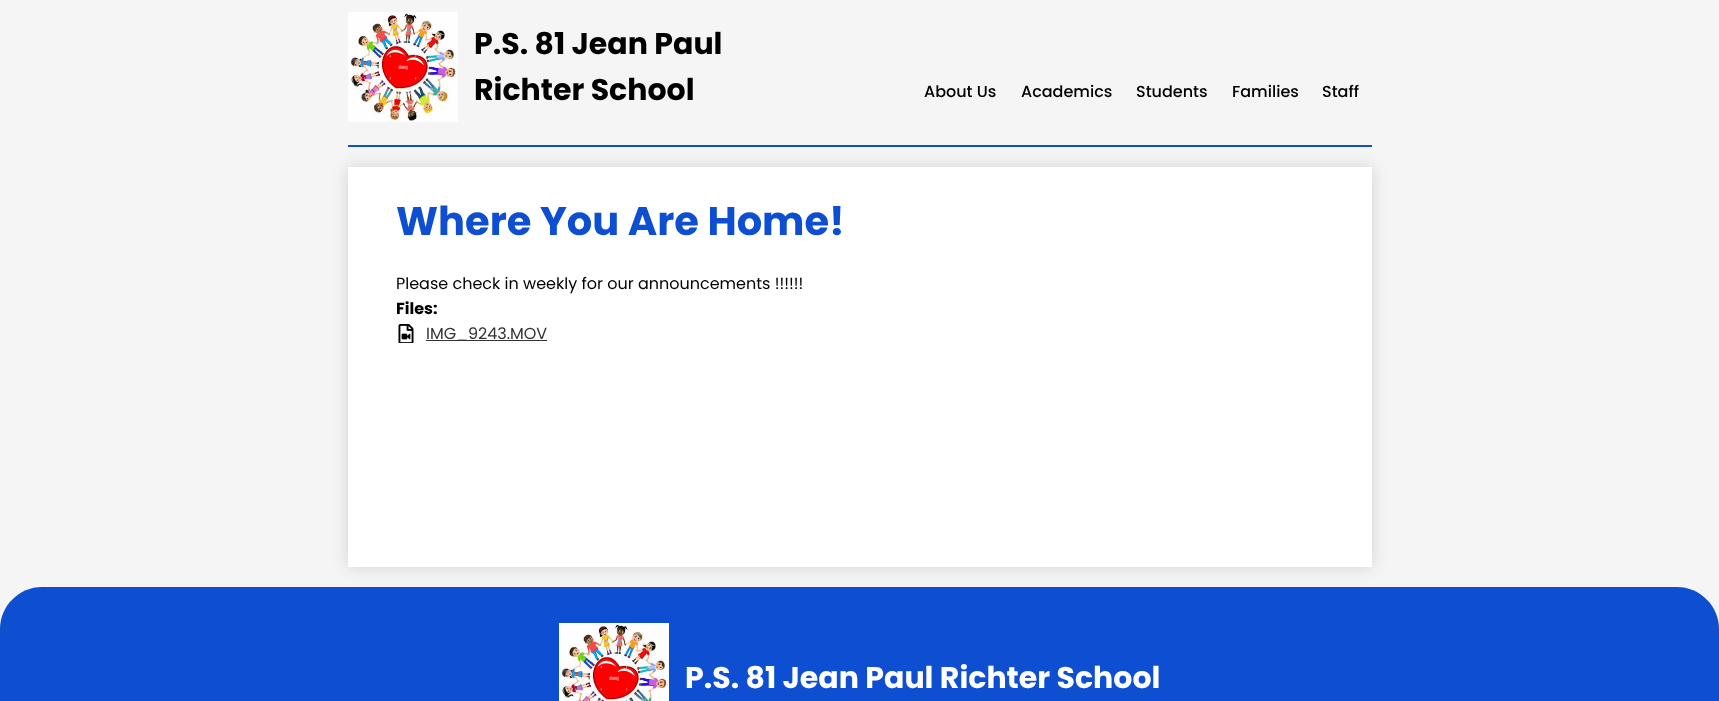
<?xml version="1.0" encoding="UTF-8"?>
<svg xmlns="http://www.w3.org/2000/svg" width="1719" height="701">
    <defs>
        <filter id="blur1" x="-50%" y="-200%" width="200%" height="500%"><feGaussianBlur stdDeviation="8"/></filter>
    </defs>
    <rect width="100%" height="100%" fill="#F5F5F5"/>
    <path d="M 42 587 H 1677 C 1700 587 1719 606 1719 629 V 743 H 0 V 629 C 0 606 19 587 42 587 Z" fill="#0E4FD2"/>
    <rect x="348" y="167" width="1024" height="400" fill="#000000" fill-opacity="0.15" filter="url(#blur1)"/>
    <rect x="348" y="145" width="1024" height="2" fill="#0E4FD2"/>
    <image x="348" y="12" width="110" height="110" href="img_01.png"/>
    <text font-family="Poppins" font-size="30" font-weight="700" fill="#000000">
        <tspan x="474" y="54">P.S. 81 Jean Paul</tspan>
        <tspan x="474" y="100">Richter School</tspan>
    </text>
    <text x="924" y="97" font-family="Poppins" font-size="16" font-weight="500" fill="#000000">About Us</text>
    <text x="1021" y="97" font-family="Poppins" font-size="16" font-weight="500" fill="#000000">Academics</text>
    <text x="1136" y="97" font-family="Poppins" font-size="16" font-weight="500" fill="#000000">Students</text>
    <text x="1232" y="97" font-family="Poppins" font-size="16" font-weight="500" fill="#000000">Families</text>
    <text x="1322" y="97" font-family="Poppins" font-size="16" font-weight="500" fill="#000000">Staff</text>
    <rect x="348" y="167" width="1024" height="400" fill="#FFFFFF"/>
    <text x="396" y="235" font-family="Poppins" font-size="40" font-weight="700" fill="#0E4FD2">Where You Are Home!</text>
    <text x="396" y="289" font-family="Poppins" font-size="16" fill="#000000">Please check in weekly for our announcements !!!!!!</text>
    <text x="396" y="314" font-family="Poppins" font-size="16" font-weight="700" fill="#000000">Files:</text>
    <image x="398" y="324" width="16" height="19" href="img_02.png"/>
    <rect x="426" y="340" width="121" height="1" fill="#333333"/>
    <text x="426" y="339" font-family="Poppins" font-size="16" fill="#333333">IMG_9243.MOV</text>
    <image x="559" y="623" width="110" height="78" href="img_03.png"/>
    <text x="685" y="688" font-family="Poppins" font-size="30" font-weight="700" fill="#FFFFFF">P.S. 81 Jean Paul Richter School</text>
</svg>
